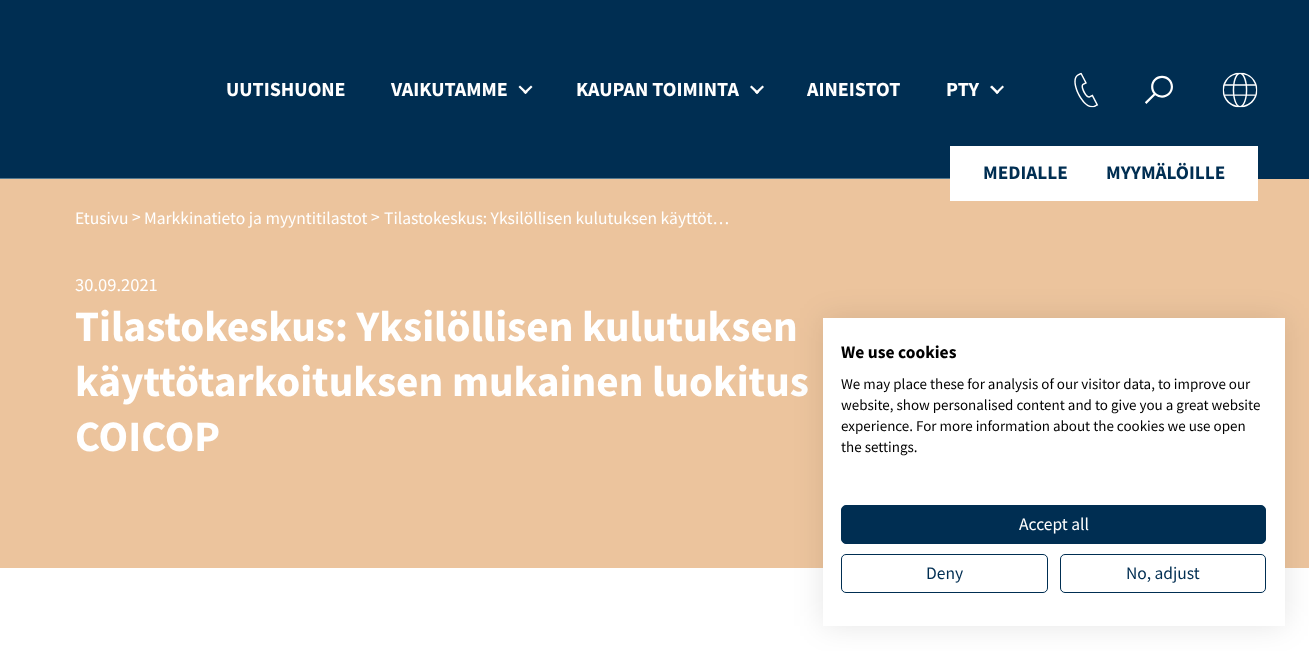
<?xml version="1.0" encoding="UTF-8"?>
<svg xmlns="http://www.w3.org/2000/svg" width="1309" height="651">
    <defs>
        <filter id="blur1" x="-50%" y="-200%" width="200%" height="500%"><feGaussianBlur stdDeviation="15"/></filter>
    </defs>
    <rect width="100%" height="100%" fill="#FFFFFF"/>
    <rect x="0" y="0" width="1309" height="179" fill="#002E52"/>
    <text x="226" y="96" font-family="Source Sans Pro" font-size="20" font-weight="700" fill="#FFFFFF">UUTISHUONE</text>
    <text x="391" y="96" font-family="Source Sans Pro" font-size="20" font-weight="700" fill="#FFFFFF">VAIKUTAMME</text>
    <path d="M 525.5 94 L 518.5 87 L 520 85.5 L 527.5 92.5 Z" fill="#FFFFFF"/>
    <path d="M 525.5 94 L 523.5 92.5 L 531 85.5 L 532.5 87 Z" fill="#FFFFFF"/>
    <text x="576" y="96" font-family="Source Sans Pro" font-size="20" font-weight="700" fill="#FFFFFF">KAUPAN TOIMINTA</text>
    <path d="M 757 94 L 750 87 L 751.5 85.5 L 759 92.5 Z" fill="#FFFFFF"/>
    <path d="M 757 94 L 755 92.5 L 762.5 85.5 L 764 87 Z" fill="#FFFFFF"/>
    <text x="807" y="96" font-family="Source Sans Pro" font-size="20" font-weight="700" fill="#FFFFFF">AINEISTOT</text>
    <text x="946" y="96" font-family="Source Sans Pro" font-size="20" font-weight="700" fill="#FFFFFF">PTY</text>
    <path d="M 997 94 L 990 87 L 992 85.5 L 999 92.5 Z" fill="#FFFFFF"/>
    <path d="M 997 94 L 995.5 92.5 L 1002.5 85.5 L 1004 87 Z" fill="#FFFFFF"/>
    <image x="1074" y="72" width="25" height="36" href="img_01.png"/>
    <image x="1145" y="75" width="28" height="29" href="img_02.png"/>
    <image x="1222" y="72" width="36" height="36" href="img_03.png"/>
    <rect x="0" y="178" width="950" height="1" fill="#577A8F"/>
    <rect x="0" y="179" width="1309" height="389" fill="#ECC49D"/>
    <rect x="950" y="146" width="308" height="55" fill="#FFFFFF"/>
    <text x="983" y="179" font-family="Source Sans Pro" font-size="19.25" font-weight="700" fill="#002E52">MEDIALLE</text>
    <text x="1106" y="179" font-family="Source Sans Pro" font-size="19.25" font-weight="700" fill="#002E52">MYYMÄLÖILLE</text>
    <text x="75" y="224" font-family="Source Sans Pro" font-size="17.5" fill="#FFFFFF">Etusivu</text>
    <text x="132" y="223" font-family="Source Sans Pro" font-size="17.5" fill="#FFFFFF">&gt;</text>
    <text x="144" y="224" font-family="Source Sans Pro" font-size="17.5" fill="#FFFFFF">Markkinatieto ja myyntitilastot</text>
    <text x="371" y="223" font-family="Source Sans Pro" font-size="17.5" fill="#FFFFFF">&gt;</text>
    <text x="384" y="224" font-family="Source Sans Pro" font-size="17.5" fill="#FFFFFF">Tilastokeskus: Yksilöllisen kulutuksen käyttöt…</text>
    <text x="75" y="291" font-family="Source Sans Pro" font-size="18.5" fill="#FFFFFF">30.09.2021</text>
    <text font-family="Source Sans Pro" font-size="43.25" font-weight="700" fill="#FFFFFF">
        <tspan x="75" y="341">Tilastokeskus: Yksilöllisen kulutuksen</tspan>
        <tspan x="75" y="396">käyttötarkoituksen mukainen luokitus</tspan>
        <tspan x="75" y="451">COICOP</tspan>
    </text>
    <rect x="823" y="318" width="462" height="308" fill="#000000" fill-opacity="0.1" filter="url(#blur1)"/>
    <rect x="823" y="318" width="462" height="308" fill="#FFFFFF"/>
    <text x="841" y="358" font-family="Source Sans Pro" font-size="17.5" font-weight="700" fill="#000000">We use cookies</text>
    <text font-family="Source Sans Pro" font-size="15" fill="#000000">
        <tspan x="841" y="389">We may place these for analysis of our visitor data, to improve our</tspan>
        <tspan x="841" y="410">website, show personalised content and to give you a great website</tspan>
        <tspan x="841" y="431">experience. For more information about the cookies we use open</tspan>
        <tspan x="841" y="452">the settings.</tspan>
    </text>
    <rect x="841.5" y="505.5" width="424" height="38" rx="4.5" fill="#002E52" stroke="#002E52"/>
    <text x="1019" y="530" font-family="Source Sans Pro" font-size="17.5" fill="#FFFFFF">Accept all</text>
    <rect x="841.5" y="554.5" width="206" height="38" rx="4.5" fill="none" stroke="#002E52"/>
    <text x="926" y="579" font-family="Source Sans Pro" font-size="17.5" fill="#002E52">Deny</text>
    <rect x="1060.5" y="554.5" width="205" height="38" rx="4.5" fill="none" stroke="#002E52"/>
    <text x="1126" y="579" font-family="Source Sans Pro" font-size="17.5" fill="#002E52">No, adjust</text>
</svg>
